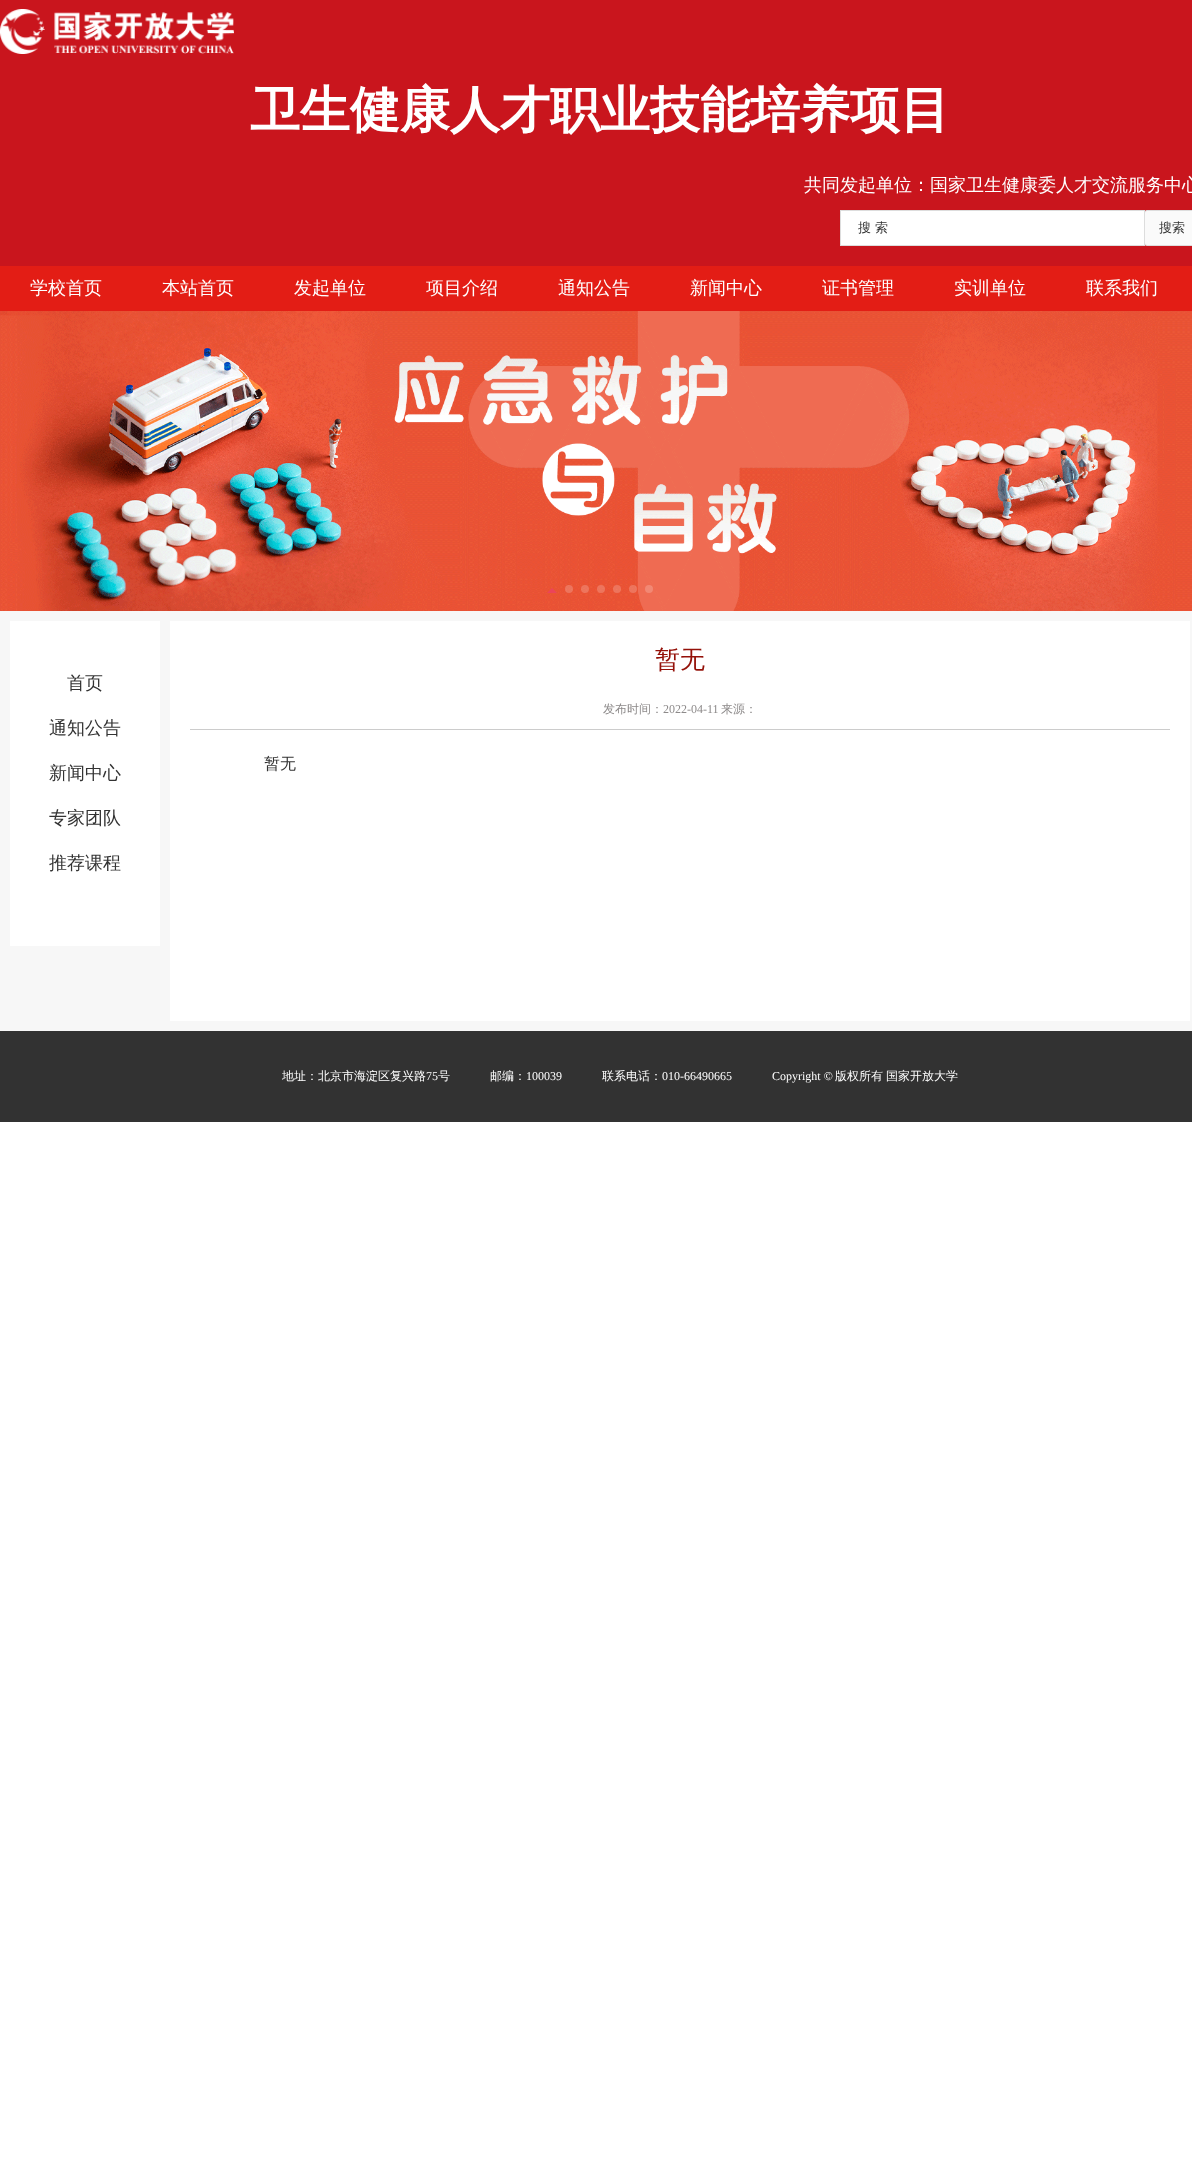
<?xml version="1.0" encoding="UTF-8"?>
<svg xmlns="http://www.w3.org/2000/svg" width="1192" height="2164">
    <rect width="100%" height="100%" fill="#FFFFFF"/>
    <rect x="0" y="0" width="1192" height="266" fill="#C9151D"/>
    <image x="0" y="9" width="234" height="45" href="img_01.png"/>
    <text x="250" y="127" font-family="WenQuanYi Zen Hei" font-size="50" font-weight="700" fill="#FFFFFF">卫生健康人才职业技能培养项目</text>
    <text x="804" y="191" font-family="WenQuanYi Zen Hei" font-size="18" font-weight="500" fill="#FFFFFF">共同发起单位：国家卫生健康委人才交流服务中心</text>
    <rect x="1144.5" y="210.5" width="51" height="35" rx="2.5" fill="#FAFAFA" stroke="#DDDDDD"/>
    <rect x="840.5" y="210.5" width="304" height="35" fill="#FFFFFF" stroke="#DDDDDD"/>
    <text x="858" y="232" font-family="WenQuanYi Zen Hei" font-size="13" font-weight="500" fill="#333333">搜 索</text>
    <text x="1159" y="232" font-family="WenQuanYi Zen Hei" font-size="13" font-weight="500" fill="#333333">搜索</text>
    <rect x="0" y="266" width="1192" height="45" fill="#E31D15"/>
    <text x="30" y="294" font-family="WenQuanYi Zen Hei" font-size="18" font-weight="500" fill="#FFFFFF">学校首页</text>
    <text x="162" y="294" font-family="WenQuanYi Zen Hei" font-size="18" font-weight="500" fill="#FFFFFF">本站首页</text>
    <text x="294" y="294" font-family="WenQuanYi Zen Hei" font-size="18" font-weight="500" fill="#FFFFFF">发起单位</text>
    <text x="426" y="294" font-family="WenQuanYi Zen Hei" font-size="18" font-weight="500" fill="#FFFFFF">项目介绍</text>
    <text x="558" y="294" font-family="WenQuanYi Zen Hei" font-size="18" font-weight="500" fill="#FFFFFF">通知公告</text>
    <text x="690" y="294" font-family="WenQuanYi Zen Hei" font-size="18" font-weight="500" fill="#FFFFFF">新闻中心</text>
    <text x="822" y="294" font-family="WenQuanYi Zen Hei" font-size="18" font-weight="500" fill="#FFFFFF">证书管理</text>
    <text x="954" y="294" font-family="WenQuanYi Zen Hei" font-size="18" font-weight="500" fill="#FFFFFF">实训单位</text>
    <text x="1086" y="294" font-family="WenQuanYi Zen Hei" font-size="18" font-weight="500" fill="#FFFFFF">联系我们</text>
    <image x="0" y="311" width="1192" height="300" href="img_02.png"/>
    <path d="M 557 593 H 547 L 552 588 Z" fill="#EB445A"/>
    <circle cx="569" cy="589" r="4" fill="#FFFFFF" fill-opacity="0.2"/>
    <circle cx="585" cy="589" r="4" fill="#FFFFFF" fill-opacity="0.2"/>
    <circle cx="601" cy="589" r="4" fill="#FFFFFF" fill-opacity="0.2"/>
    <circle cx="617" cy="589" r="4" fill="#FFFFFF" fill-opacity="0.2"/>
    <circle cx="633" cy="589" r="4" fill="#FFFFFF" fill-opacity="0.2"/>
    <circle cx="649" cy="589" r="4" fill="#FFFFFF" fill-opacity="0.2"/>
    <rect x="0" y="611" width="1192" height="420" fill="#F7F7F7"/>
    <rect x="10" y="621" width="150" height="325" fill="#FFFFFF"/>
    <text x="67" y="689" font-family="WenQuanYi Zen Hei" font-size="18" font-weight="500" fill="#333333">首页</text>
    <text x="49" y="734" font-family="WenQuanYi Zen Hei" font-size="18" font-weight="500" fill="#333333">通知公告</text>
    <text x="49" y="779" font-family="WenQuanYi Zen Hei" font-size="18" font-weight="500" fill="#333333">新闻中心</text>
    <text x="49" y="824" font-family="WenQuanYi Zen Hei" font-size="18" font-weight="500" fill="#333333">专家团队</text>
    <text x="49" y="869" font-family="WenQuanYi Zen Hei" font-size="18" font-weight="500" fill="#333333">推荐课程</text>
    <rect x="170" y="621" width="1020" height="400" fill="#FFFFFF"/>
    <text x="655" y="668" font-family="WenQuanYi Zen Hei" font-size="25" font-weight="500" fill="#941109">暂无</text>
    <rect x="190" y="729" width="980" height="1" fill="#CCCCCC"/>
    <text x="603" y="713" font-family="WenQuanYi Zen Hei" font-size="12" font-weight="500" fill="#8D8A8A">发布时间：</text>
    <text x="663" y="713" font-family="Liberation Serif" font-size="12" fill="#8D8A8A">2022-04-11</text>
    <text x="721" y="713" font-family="WenQuanYi Zen Hei" font-size="12" font-weight="500" fill="#8D8A8A">来源：</text>
    <text x="264" y="769" font-family="WenQuanYi Zen Hei" font-size="16" font-weight="500" fill="#333333">暂无</text>
    <rect x="0" y="1031" width="1192" height="91" fill="#323232"/>
    <text x="282" y="1080" font-family="WenQuanYi Zen Hei" font-size="12" font-weight="500" fill="#FFFFFF">地址：北京市海淀区复兴路</text>
    <text x="426" y="1080" font-family="Liberation Serif" font-size="12" fill="#FFFFFF">75</text>
    <text x="438" y="1080" font-family="WenQuanYi Zen Hei" font-size="12" font-weight="500" fill="#FFFFFF">号</text>
    <text x="490" y="1080" font-family="WenQuanYi Zen Hei" font-size="12" font-weight="500" fill="#FFFFFF">邮编：</text>
    <text x="526" y="1080" font-family="Liberation Serif" font-size="12" fill="#FFFFFF">100039</text>
    <text x="602" y="1080" font-family="WenQuanYi Zen Hei" font-size="12" font-weight="500" fill="#FFFFFF">联系电话：</text>
    <text x="662" y="1080" font-family="Liberation Serif" font-size="12" fill="#FFFFFF">010-66490665</text>
    <text x="772" y="1080" font-family="Liberation Serif" font-size="12" fill="#FFFFFF">Copyright ©</text>
    <text x="835" y="1080" font-family="WenQuanYi Zen Hei" font-size="12" font-weight="500" fill="#FFFFFF">版权所有</text>
    <text x="886" y="1080" font-family="WenQuanYi Zen Hei" font-size="12" font-weight="500" fill="#FFFFFF">国家开放大学</text>
</svg>
